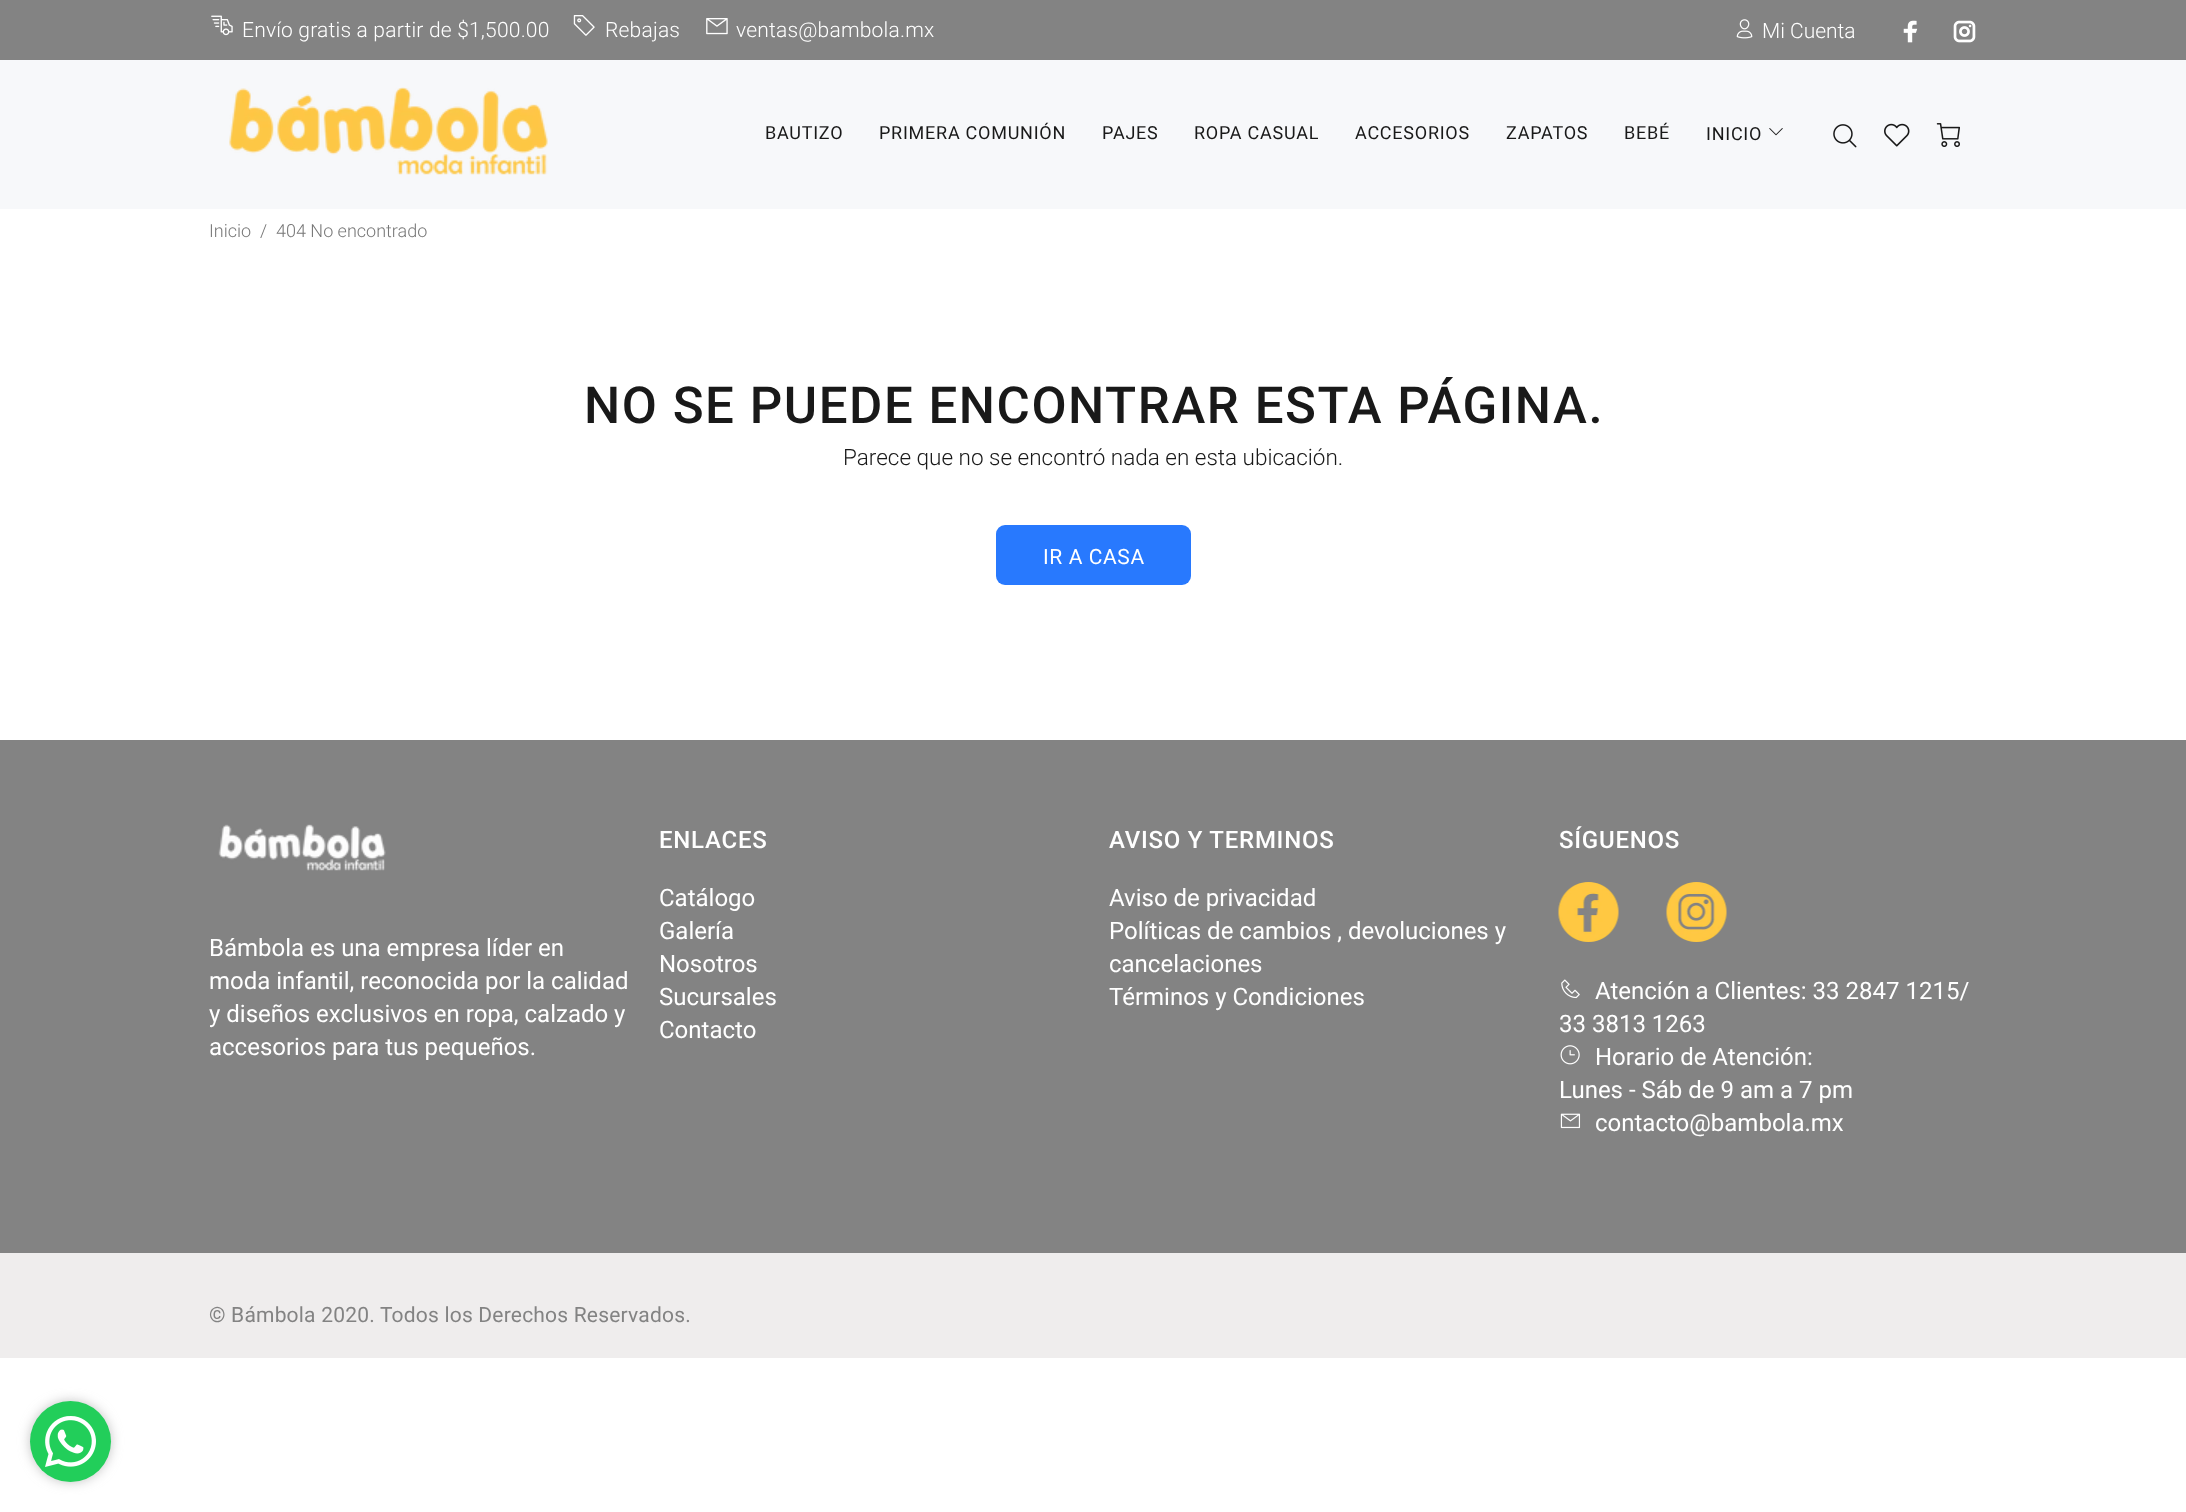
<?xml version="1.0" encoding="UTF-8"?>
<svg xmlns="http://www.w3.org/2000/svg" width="2186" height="1512">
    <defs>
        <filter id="blur1" x="-50%" y="-200%" width="200%" height="500%"><feGaussianBlur stdDeviation="6"/></filter>
    </defs>
    <rect width="100%" height="100%" fill="#FFFFFF"/>
    <rect x="0" y="60" width="2186" height="149" fill="#F7F8FA"/>
    <rect x="0" y="0" width="2186" height="60" fill="#838383"/>
    <image x="211" y="15" width="22" height="21" href="img_01.png"/>
    <text x="242" y="37" font-family="Roboto" font-size="21" font-weight="300" letter-spacing="0.2" fill="#FFFFFF">Envío gratis a partir de $1,500.00</text>
    <image x="573" y="15" width="22" height="21" href="img_02.png"/>
    <text x="605" y="37" font-family="Roboto" font-size="21" font-weight="300" letter-spacing="0.2" fill="#FFFFFF">Rebajas</text>
    <image x="706" y="18" width="22" height="17" href="img_03.png"/>
    <text x="736" y="37" font-family="Roboto" font-size="21" font-weight="300" letter-spacing="0.2" fill="#FFFFFF">ventas@bambola.mx</text>
    <image x="1736" y="19" width="17" height="20" href="img_04.png"/>
    <text x="1762" y="38" font-family="Roboto" font-size="21" font-weight="300" fill="#FFFFFF">Mi Cuenta</text>
    <image x="1903" y="20" width="15" height="23" href="img_05.png"/>
    <image x="1953" y="20" width="23" height="23" href="img_06.png"/>
    <image x="229" y="87" width="319" height="88" href="img_07.png"/>
    <text x="765" y="139" font-family="Roboto" font-size="18" letter-spacing="0.75" fill="#191919">BAUTIZO</text>
    <text x="879" y="139" font-family="Roboto" font-size="18" letter-spacing="0.75" fill="#191919">PRIMERA COMUNIÓN</text>
    <text x="1102" y="139" font-family="Roboto" font-size="18" letter-spacing="0.75" fill="#191919">PAJES</text>
    <text x="1194" y="139" font-family="Roboto" font-size="18" letter-spacing="0.75" fill="#191919">ROPA CASUAL</text>
    <text x="1355" y="139" font-family="Roboto" font-size="18" letter-spacing="0.75" fill="#191919">ACCESORIOS</text>
    <text x="1506" y="139" font-family="Roboto" font-size="18" letter-spacing="0.75" fill="#191919">ZAPATOS</text>
    <text x="1624" y="139" font-family="Roboto" font-size="18" letter-spacing="0.75" fill="#191919">BEBÉ</text>
    <text x="1706" y="140" font-family="Roboto" font-size="18" letter-spacing="0.75" fill="#191919">INICIO</text>
    <image x="1769" y="128" width="14" height="8" href="img_08.png"/>
    <image x="1833" y="124" width="24" height="24" href="img_09.png"/>
    <image x="1884" y="123" width="26" height="24" href="img_10.png"/>
    <image x="1936" y="123" width="24" height="24" href="img_11.png"/>
    <text x="209" y="237" font-family="Roboto" font-size="18" font-weight="300" fill="#777777">Inicio</text>
    <text x="260" y="237" font-family="Roboto" font-size="18" font-weight="300" fill="#777777">/</text>
    <text x="276" y="237" font-family="Roboto" font-size="18" font-weight="300" fill="#777777">404 No encontrado</text>
    <text x="584" y="423" font-family="Roboto" font-size="51" font-weight="500" letter-spacing="1.55" fill="#191919">NO SE PUEDE ENCONTRAR ESTA PÁGINA.</text>
    <text x="843" y="465" font-family="Roboto" font-size="22.5" font-weight="300" fill="#191919">Parece que no se encontró nada en esta ubicación.</text>
    <rect x="996" y="525" width="195" height="60" rx="9" fill="#2879FE"/>
    <text x="1043" y="564" font-family="Roboto" font-size="21" letter-spacing="0.6" fill="#FFFFFF">IR A CASA</text>
    <rect x="0" y="740" width="2186" height="513" fill="#838383"/>
    <image x="218" y="824" width="168" height="47" href="img_12.png"/>
    <text font-family="Roboto" font-size="24" fill="#FFFFFF">
        <tspan x="209" y="956">Bámbola es una empresa líder en</tspan>
        <tspan x="209" y="989">moda infantil, reconocida por la calidad</tspan>
        <tspan x="209" y="1022">y diseños exclusivos en ropa, calzado y</tspan>
        <tspan x="209" y="1055">accesorios para tus pequeños.</tspan>
    </text>
    <text x="659" y="848" font-family="Roboto" font-size="24" font-weight="500" letter-spacing="0.75" fill="#FFFFFF">ENLACES</text>
    <text font-family="Roboto" font-size="24" fill="#FFFFFF">
        <tspan x="659" y="906">Catálogo</tspan>
        <tspan x="659" y="939">Galería</tspan>
        <tspan x="659" y="972">Nosotros</tspan>
        <tspan x="659" y="1005">Sucursales</tspan>
        <tspan x="659" y="1038">Contacto</tspan>
    </text>
    <text x="1109" y="848" font-family="Roboto" font-size="24" font-weight="500" letter-spacing="0.75" fill="#FFFFFF">AVISO Y TERMINOS</text>
    <text font-family="Roboto" font-size="24" fill="#FFFFFF">
        <tspan x="1109" y="906">Aviso de privacidad</tspan>
        <tspan x="1109" y="939">Políticas de cambios , devoluciones y</tspan>
        <tspan x="1109" y="972">cancelaciones</tspan>
        <tspan x="1109" y="1005">Términos y Condiciones</tspan>
    </text>
    <text x="1559" y="848" font-family="Roboto" font-size="24" font-weight="500" letter-spacing="0.75" fill="#FFFFFF">SÍGUENOS</text>
    <image x="1558" y="882" width="61" height="60" href="img_13.png"/>
    <image x="1666" y="882" width="61" height="60" href="img_14.png"/>
    <image x="1561" y="979" width="19" height="20" href="img_15.png"/>
    <text x="1595" y="999" font-family="Roboto" font-size="24" fill="#FFFFFF">Atención a Clientes: 33 2847 1215/</text>
    <text x="1559" y="1032" font-family="Roboto" font-size="24" fill="#FFFFFF">33 3813 1263</text>
    <image x="1560" y="1045" width="20" height="20" href="img_16.png"/>
    <text x="1595" y="1065" font-family="Roboto" font-size="24" fill="#FFFFFF">Horario de Atención:</text>
    <text x="1559" y="1098" font-family="Roboto" font-size="24" fill="#FFFFFF">Lunes - Sáb de 9 am a 7 pm</text>
    <image x="1560" y="1113" width="21" height="16" href="img_17.png"/>
    <text x="1595" y="1131" font-family="Roboto" font-size="24" fill="#FFFFFF">contacto@bambola.mx</text>
    <rect x="0" y="1253" width="2186" height="105" fill="#EFEDED"/>
    <text x="209" y="1322" font-family="Roboto" font-size="21" letter-spacing="0.2" fill="#838383">© Bámbola 2020. Todos los Derechos Reservados.</text>
    <rect x="30" y="1401" width="81" height="81" rx="40.5" fill="#C2C2C2" filter="url(#blur1)"/>
    <circle cx="70.5" cy="1441.5" r="40.5" fill="#22CE5A"/>
    <image x="45" y="1416" width="51" height="51" href="img_18.png"/>
</svg>
